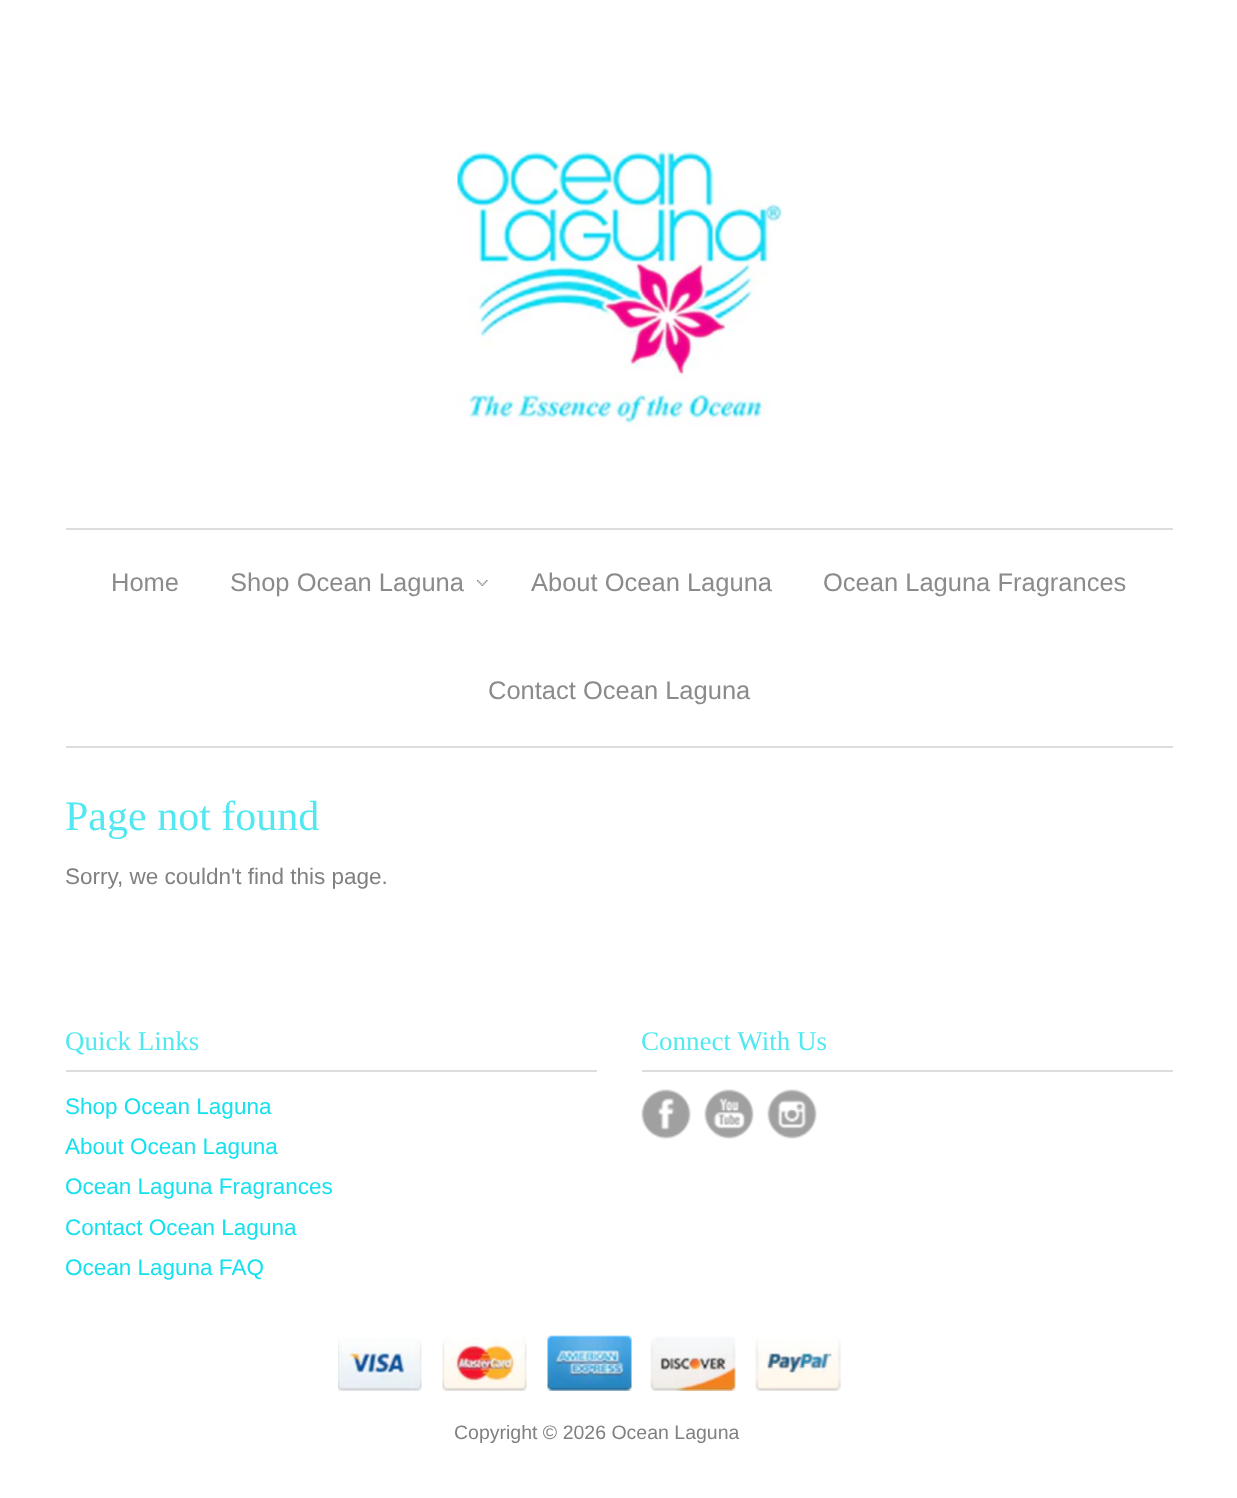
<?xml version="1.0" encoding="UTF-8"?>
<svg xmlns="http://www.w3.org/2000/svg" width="1237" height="1498">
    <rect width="100%" height="100%" fill="#FFFFFF"/>
    <image x="457" y="151" width="325" height="277" href="img_01.png"/>
    <rect x="66" y="528" width="1107" height="2" fill="#DDDDDD"/>
    <rect x="66" y="746" width="1107" height="2" fill="#DDDDDD"/>
    <text x="111" y="591" font-family="Liberation Sans" font-size="25.5" fill="#8B8B8B">Home</text>
    <image x="477" y="580" width="11" height="6" href="img_02.png"/>
    <text x="230" y="591" font-family="Liberation Sans" font-size="25.5" fill="#8B8B8B">Shop Ocean Laguna</text>
    <text x="531" y="591" font-family="Liberation Sans" font-size="25.5" fill="#8B8B8B">About Ocean Laguna</text>
    <text x="823" y="591" font-family="Liberation Sans" font-size="25.5" fill="#8B8B8B">Ocean Laguna Fragrances</text>
    <text x="488" y="699" font-family="Liberation Sans" font-size="25.5" fill="#8B8B8B">Contact Ocean Laguna</text>
    <text x="65" y="830" font-family="Liberation Serif" font-size="42" fill="#53E8F1">Page not found</text>
    <text x="65" y="884" font-family="Liberation Sans" font-size="22.5" fill="#808080">Sorry, we couldn't find this page.</text>
    <rect x="66" y="1070" width="531" height="2" fill="#DDDDDD"/>
    <text x="65" y="1050" font-family="Liberation Serif" font-size="27" fill="#53E8F1">Quick Links</text>
    <text font-family="Liberation Sans" font-size="22.5" fill="#15E1EE">
        <tspan x="65" y="1114">Shop Ocean Laguna</tspan>
        <tspan x="65" y="1154">About Ocean Laguna</tspan>
        <tspan x="65" y="1194">Ocean Laguna Fragrances</tspan>
        <tspan x="65" y="1235">Contact Ocean Laguna</tspan>
        <tspan x="65" y="1275">Ocean Laguna FAQ</tspan>
    </text>
    <rect x="642" y="1070" width="531" height="2" fill="#DDDDDD"/>
    <text x="641" y="1050" font-family="Liberation Serif" font-size="27" fill="#53E8F1">Connect With Us</text>
    <image x="641" y="1089" width="50" height="50" href="img_03.png"/>
    <image x="704" y="1089" width="50" height="50" href="img_04.png"/>
    <image x="767" y="1089" width="50" height="50" href="img_05.png"/>
    <image x="338" y="1338" width="84" height="53" href="img_06.png"/>
    <image x="442" y="1337" width="85" height="54" href="img_07.png"/>
    <image x="547" y="1335" width="85" height="56" href="img_08.png"/>
    <image x="650" y="1336" width="86" height="55" href="img_09.png"/>
    <image x="755" y="1337" width="86" height="54" href="img_10.png"/>
    <text x="454" y="1439" font-family="Liberation Sans" font-size="19.5" fill="#808080">Copyright © 2026 Ocean Laguna</text>
</svg>
